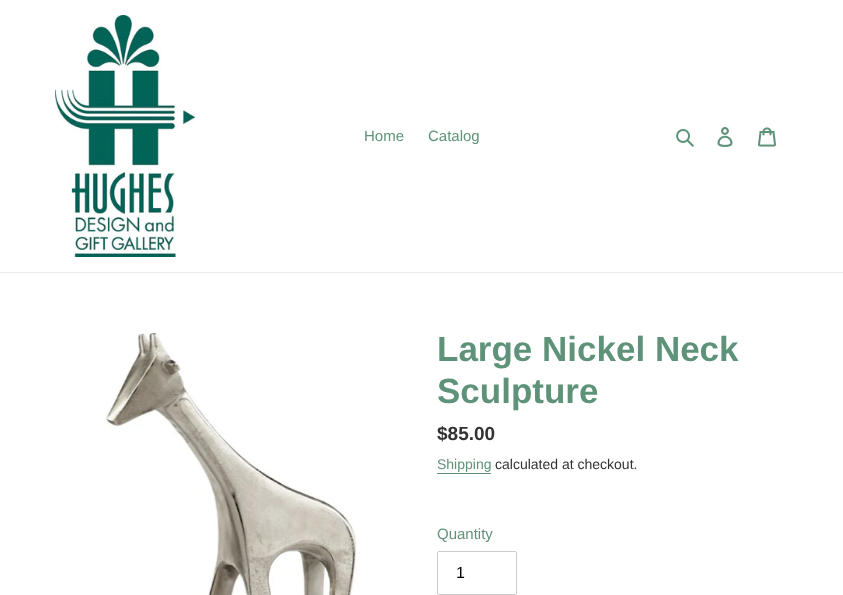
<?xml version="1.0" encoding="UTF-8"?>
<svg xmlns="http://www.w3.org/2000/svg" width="843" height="595">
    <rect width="100%" height="100%" fill="#FFFFFF"/>
    <rect x="0" y="272" width="843" height="1" fill="#EBEBEB"/>
    <image x="55" y="15" width="140" height="242" href="img_01.png"/>
    <text x="364" y="141" font-family="Liberation Sans" font-size="15" fill="#5F9379">Home</text>
    <text x="428" y="141" font-family="Liberation Sans" font-size="15" fill="#5F9379">Catalog</text>
    <image x="676" y="129" width="18" height="18" href="img_02.png"/>
    <image x="717" y="127" width="16" height="20" href="img_03.png"/>
    <image x="758" y="127" width="18" height="20" href="img_04.png"/>
    <image x="105" y="331" width="252" height="264" href="img_05.png"/>
    <text font-family="Liberation Sans" font-size="35" font-weight="700" fill="#5F9379">
        <tspan x="437" y="361">Large Nickel Neck</tspan>
        <tspan x="437" y="403">Sculpture</tspan>
    </text>
    <text x="437" y="440" font-family="Liberation Sans" font-size="19" font-weight="700" fill="#333232">$85.00</text>
    <text x="437" y="469" font-family="Liberation Sans" font-size="14" fill="#5F9379">Shipping</text>
    <rect x="437" y="473" width="54" height="1" fill="#5F9379"/>
    <text x="495" y="469" font-family="Liberation Sans" font-size="14" fill="#333232">calculated at checkout.</text>
    <text x="437" y="539" font-family="Liberation Sans" font-size="15" fill="#5F9379">Quantity</text>
    <rect x="437.5" y="551.5" width="79" height="43" rx="1.5" fill="none" stroke="#CCCCCC"/>
    <text x="456" y="578" font-family="Liberation Sans" font-size="16" fill="#000000">1</text>
</svg>
